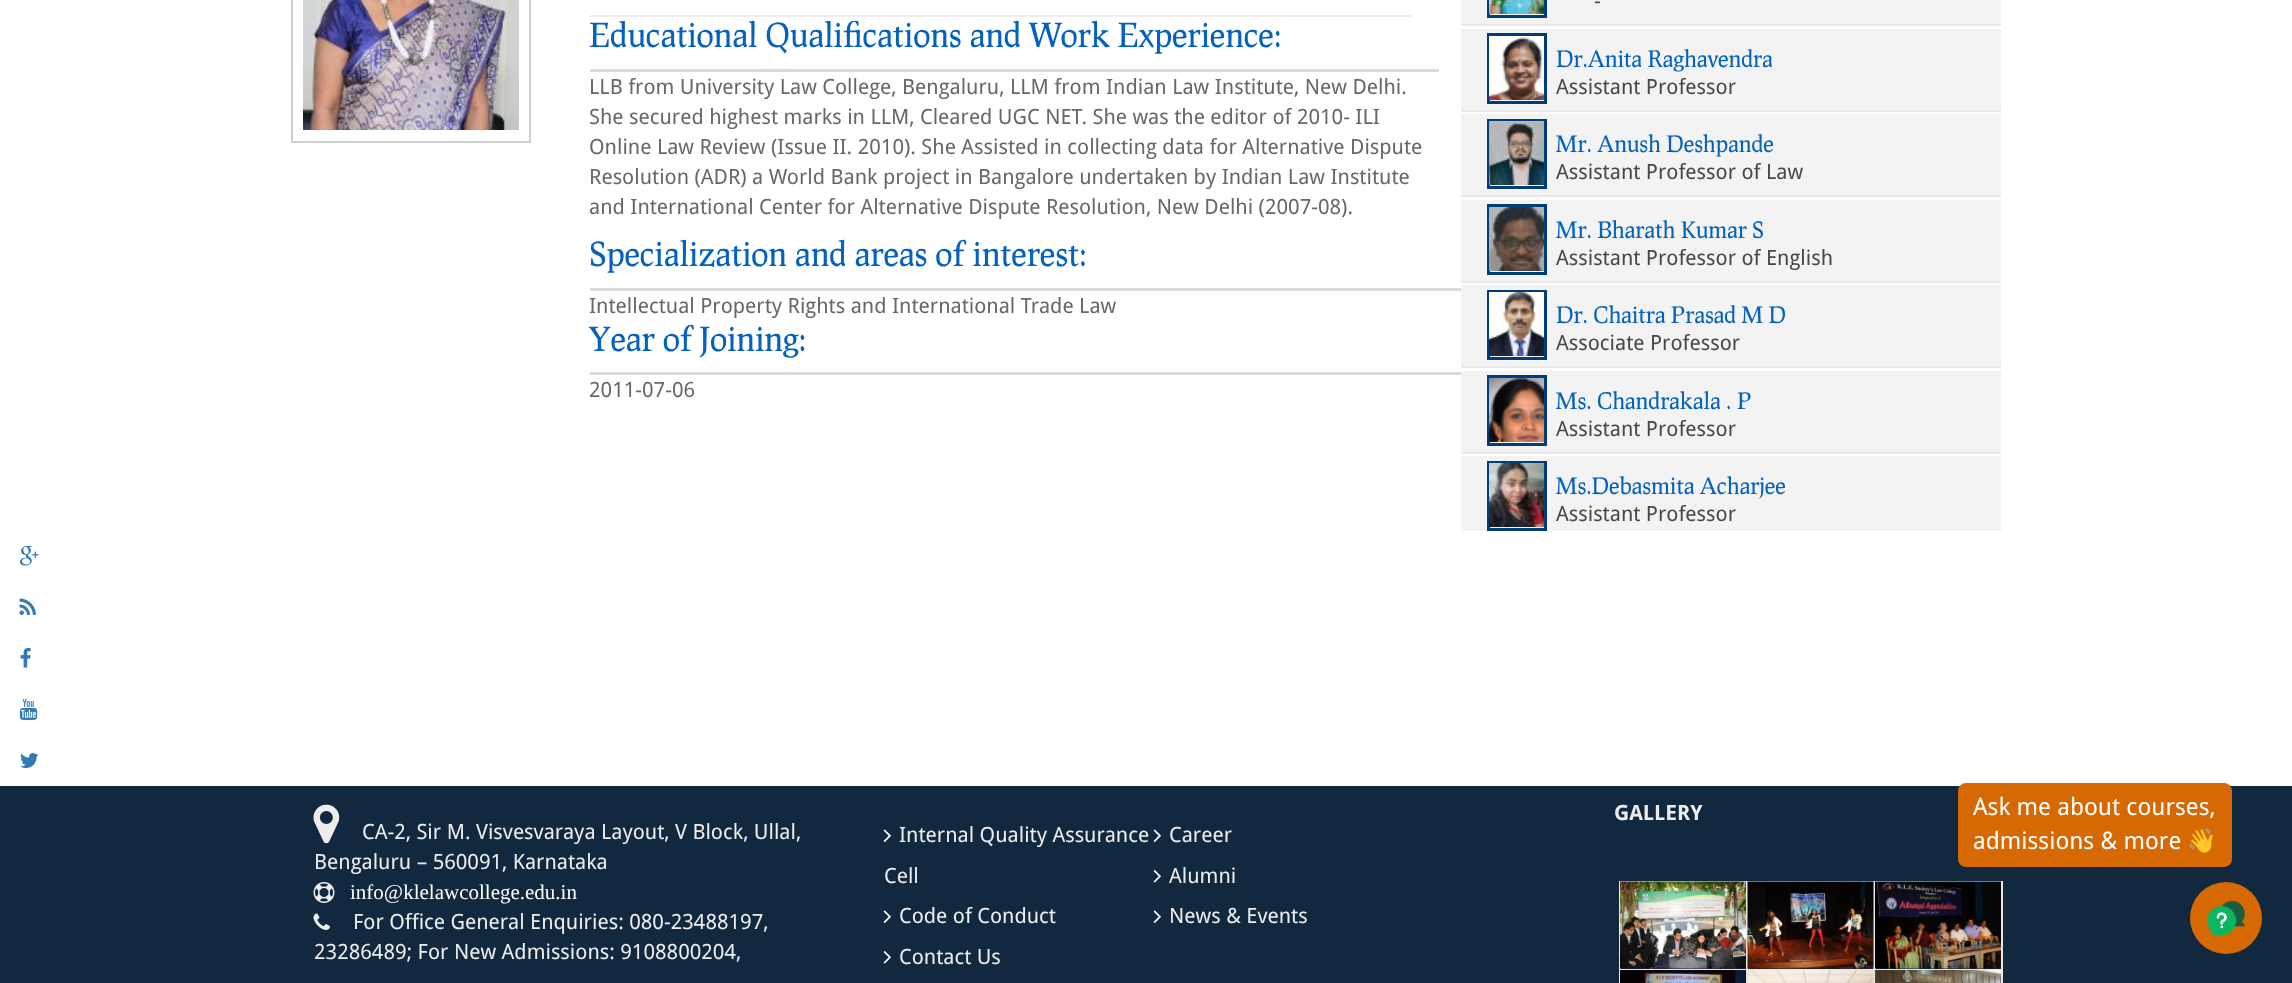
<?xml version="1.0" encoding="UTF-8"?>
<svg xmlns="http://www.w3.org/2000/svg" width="2292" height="983">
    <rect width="100%" height="100%" fill="#FFFFFF"/>
    <rect x="292" y="-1" width="238" height="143" fill="none" stroke="#CECECE" stroke-width="2"/>
    <image x="303" y="0" width="216" height="130" href="img_01.png"/>
    <rect x="590" y="15" width="822" height="2" fill="#EEEEEE"/>
    <rect x="590" y="69" width="849" height="3" fill="#DBDBDB"/>
    <text x="589" y="47" font-family="Prociono" font-size="33" fill="#0461BE">Educational Qualifications and Work Experience:</text>
    <text font-family="Droid Sans" font-size="21" fill="#686868">
        <tspan x="589" y="94">LLB from University Law College, Bengaluru, LLM from Indian Law Institute, New Delhi.</tspan>
        <tspan x="589" y="124">She secured highest marks in LLM, Cleared UGC NET. She was the editor of 2010- ILI</tspan>
        <tspan x="589" y="154">Online Law Review (Issue II. 2010). She Assisted in collecting data for Alternative Dispute</tspan>
        <tspan x="589" y="184">Resolution (ADR) a World Bank project in Bangalore undertaken by Indian Law Institute</tspan>
        <tspan x="589" y="214">and International Center for Alternative Dispute Resolution, New Delhi (2007-08).</tspan>
    </text>
    <rect x="590" y="288" width="871" height="3" fill="#DBDBDB"/>
    <text x="589" y="266" font-family="Prociono" font-size="33" fill="#0461BE">Specialization and areas of interest:</text>
    <text x="589" y="313" font-family="Droid Sans" font-size="21" fill="#686868">Intellectual Property Rights and International Trade Law</text>
    <rect x="590" y="372" width="871" height="3" fill="#DBDBDB"/>
    <text x="589" y="351" font-family="Prociono" font-size="33" fill="#0461BE">Year of Joining:</text>
    <text x="589" y="397" font-family="Droid Sans" font-size="21" fill="#686868">2011-07-06</text>
    <rect x="1461" y="0" width="540" height="24" fill="#F3F3F3"/>
    <rect x="1461" y="24" width="540" height="2" fill="#EAEAEA"/>
    <image x="1490" y="14" width="54" height="1" href="img_02.png"/>
    <rect x="1488.5" y="-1.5" width="57" height="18" fill="none" stroke="#013D79" stroke-width="3"/>
    <image x="1489" y="0" width="55" height="14" href="img_03.png"/>
    <text x="1594" y="8" font-family="Droid Sans" font-size="21" fill="#484848">-</text>
    <rect x="1461" y="29" width="540" height="81" fill="#F3F3F3"/>
    <rect x="1461" y="110" width="540" height="2" fill="#EAEAEA"/>
    <rect x="1488.5" y="34.5" width="57" height="68" fill="none" stroke="#013D79" stroke-width="3"/>
    <image x="1489" y="36" width="55" height="64" href="img_04.png"/>
    <text x="1556" y="67" font-family="Prociono" font-size="22.5" fill="#0461BE">Dr.Anita Raghavendra</text>
    <text x="1556" y="94" font-family="Droid Sans" font-size="21" fill="#484848">Assistant Professor</text>
    <rect x="1461" y="114" width="540" height="81" fill="#F3F3F3"/>
    <rect x="1461" y="195" width="540" height="2" fill="#EAEAEA"/>
    <image x="1490" y="185" width="54" height="1" href="img_02.png"/>
    <rect x="1488.5" y="120.5" width="57" height="67" fill="none" stroke="#013D79" stroke-width="3"/>
    <image x="1489" y="121" width="55" height="64" href="img_05.png"/>
    <text x="1556" y="152" font-family="Prociono" font-size="22.5" fill="#0461BE">Mr. Anush Deshpande</text>
    <text x="1556" y="179" font-family="Droid Sans" font-size="21" fill="#484848">Assistant Professor of Law</text>
    <rect x="1461" y="200" width="540" height="81" fill="#F3F3F3"/>
    <rect x="1461" y="281" width="540" height="2" fill="#EAEAEA"/>
    <rect x="1488.5" y="205.5" width="57" height="68" fill="none" stroke="#013D79" stroke-width="3"/>
    <image x="1489" y="207" width="55" height="64" href="img_06.png"/>
    <text x="1556" y="238" font-family="Prociono" font-size="22.5" fill="#0461BE">Mr. Bharath Kumar S</text>
    <text x="1556" y="265" font-family="Droid Sans" font-size="21" fill="#484848">Assistant Professor of English</text>
    <rect x="1461" y="285" width="540" height="81" fill="#F3F3F3"/>
    <rect x="1461" y="366" width="540" height="2" fill="#EAEAEA"/>
    <image x="1490" y="356" width="54" height="1" href="img_02.png"/>
    <rect x="1488.5" y="291.5" width="57" height="67" fill="none" stroke="#013D79" stroke-width="3"/>
    <image x="1489" y="292" width="55" height="64" href="img_07.png"/>
    <text x="1556" y="323" font-family="Prociono" font-size="22.5" fill="#0461BE">Dr. Chaitra Prasad M D</text>
    <text x="1556" y="350" font-family="Droid Sans" font-size="21" fill="#484848">Associate Professor</text>
    <rect x="1461" y="371" width="540" height="81" fill="#F3F3F3"/>
    <rect x="1461" y="452" width="540" height="2" fill="#EAEAEA"/>
    <rect x="1488.5" y="376.5" width="57" height="68" fill="none" stroke="#013D79" stroke-width="3"/>
    <image x="1489" y="378" width="55" height="64" href="img_08.png"/>
    <text x="1556" y="409" font-family="Prociono" font-size="22.5" fill="#0461BE">Ms. Chandrakala . P</text>
    <text x="1556" y="436" font-family="Droid Sans" font-size="21" fill="#484848">Assistant Professor</text>
    <rect x="1461" y="456" width="540" height="75" fill="#F3F3F3"/>
    <image x="1490" y="527" width="54" height="1" href="img_02.png"/>
    <rect x="1488.5" y="462.5" width="57" height="67" fill="none" stroke="#013D79" stroke-width="3"/>
    <image x="1489" y="463" width="55" height="64" href="img_09.png"/>
    <text x="1556" y="494" font-family="Prociono" font-size="22.5" fill="#0461BE">Ms.Debasmita Acharjee</text>
    <text x="1556" y="521" font-family="Droid Sans" font-size="21" fill="#484848">Assistant Professor</text>
    <image x="19" y="546" width="20" height="20" href="img_10.png"/>
    <image x="19" y="598" width="17" height="17" href="img_11.png"/>
    <image x="20" y="648" width="11" height="20" href="img_12.png"/>
    <image x="19" y="699" width="19" height="21" href="img_13.png"/>
    <image x="20" y="753" width="19" height="15" href="img_14.png"/>
    <rect x="0" y="786" width="2292" height="197" fill="#12283E"/>
    <text x="1614" y="820" font-family="Droid Sans" font-size="21" font-weight="700" fill="#EDEDED">GALLERY</text>
    <rect x="1620" y="882" width="127" height="88" fill="none" stroke="#E7E7E7" stroke-width="2"/>
    <image x="1620" y="881" width="126" height="88" href="img_15.png"/>
    <rect x="1747" y="882" width="127" height="88" fill="none" stroke="#E7E7E7" stroke-width="2"/>
    <image x="1747" y="881" width="127" height="88" href="img_16.png"/>
    <rect x="1875" y="882" width="127" height="88" fill="none" stroke="#E7E7E7" stroke-width="2"/>
    <image x="1875" y="881" width="126" height="88" href="img_17.png"/>
    <rect x="1620" y="970" width="127" height="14" fill="none" stroke="#E7E7E7" stroke-width="2"/>
    <image x="1620" y="970" width="126" height="13" href="img_18.png"/>
    <rect x="1747" y="970" width="127" height="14" fill="none" stroke="#E7E7E7" stroke-width="2"/>
    <image x="1747" y="970" width="127" height="13" href="img_19.png"/>
    <rect x="1875" y="970" width="127" height="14" fill="none" stroke="#E7E7E7" stroke-width="2"/>
    <image x="1875" y="970" width="126" height="13" href="img_20.png"/>
    <image x="313" y="804" width="27" height="40" href="img_21.png"/>
    <text x="362" y="839" font-family="Droid Sans" font-size="21" fill="#EDEDED">CA-2, Sir M. Visvesvaraya Layout, V Block, Ullal,</text>
    <text x="314" y="869" font-family="Droid Sans" font-size="21" fill="#EDEDED">Bengaluru – 560091, Karnataka</text>
    <image x="313" y="882" width="22" height="21" href="img_22.png"/>
    <text x="350" y="899" font-family="Liberation Serif" font-size="21" fill="#FFFFFF">info@klelawcollege.edu.in</text>
    <image x="313" y="913" width="17" height="17" href="img_23.png"/>
    <text x="353" y="929" font-family="Droid Sans" font-size="21" fill="#EDEDED">For Office General Enquiries: 080-23488197,</text>
    <text x="314" y="959" font-family="Droid Sans" font-size="21" fill="#EDEDED">23286489; For New Admissions: 9108800204,</text>
    <image x="883" y="829" width="8" height="13" href="img_24.png"/>
    <text x="899" y="842" font-family="Droid Sans" font-size="21" fill="#EDEDED">Internal Quality Assurance</text>
    <text x="884" y="883" font-family="Droid Sans" font-size="21" fill="#EDEDED">Cell</text>
    <image x="1153" y="829" width="8" height="13" href="img_24.png"/>
    <text x="1169" y="842" font-family="Droid Sans" font-size="21" fill="#EDEDED">Career</text>
    <image x="1153" y="870" width="8" height="13" href="img_25.png"/>
    <text x="1169" y="883" font-family="Droid Sans" font-size="21" fill="#EDEDED">Alumni</text>
    <image x="883" y="910" width="8" height="13" href="img_24.png"/>
    <text x="899" y="923" font-family="Droid Sans" font-size="21" fill="#EDEDED">Code of Conduct</text>
    <image x="1153" y="910" width="8" height="13" href="img_24.png"/>
    <text x="1169" y="923" font-family="Droid Sans" font-size="21" fill="#EDEDED">News &amp; Events</text>
    <image x="883" y="951" width="8" height="13" href="img_25.png"/>
    <text x="899" y="964" font-family="Droid Sans" font-size="21" fill="#EDEDED">Contact Us</text>
    <rect x="1958" y="783" width="274" height="84" rx="8" fill="#D66904"/>
    <text font-family="Droid Sans" font-size="24" fill="#FFFFFF">
        <tspan x="1973" y="815">Ask me about courses,</tspan>
        <tspan x="1973" y="849">admissions &amp; more</tspan>
    </text>
    <text x="2187" y="849" font-family="Noto Color Emoji" font-size="24" fill="#FFFFFF">👋</text>
    <circle cx="2226" cy="918" r="36" fill="#D66904"/>
    <image x="2207" y="901" width="38" height="34" href="img_26.png"/>
</svg>
